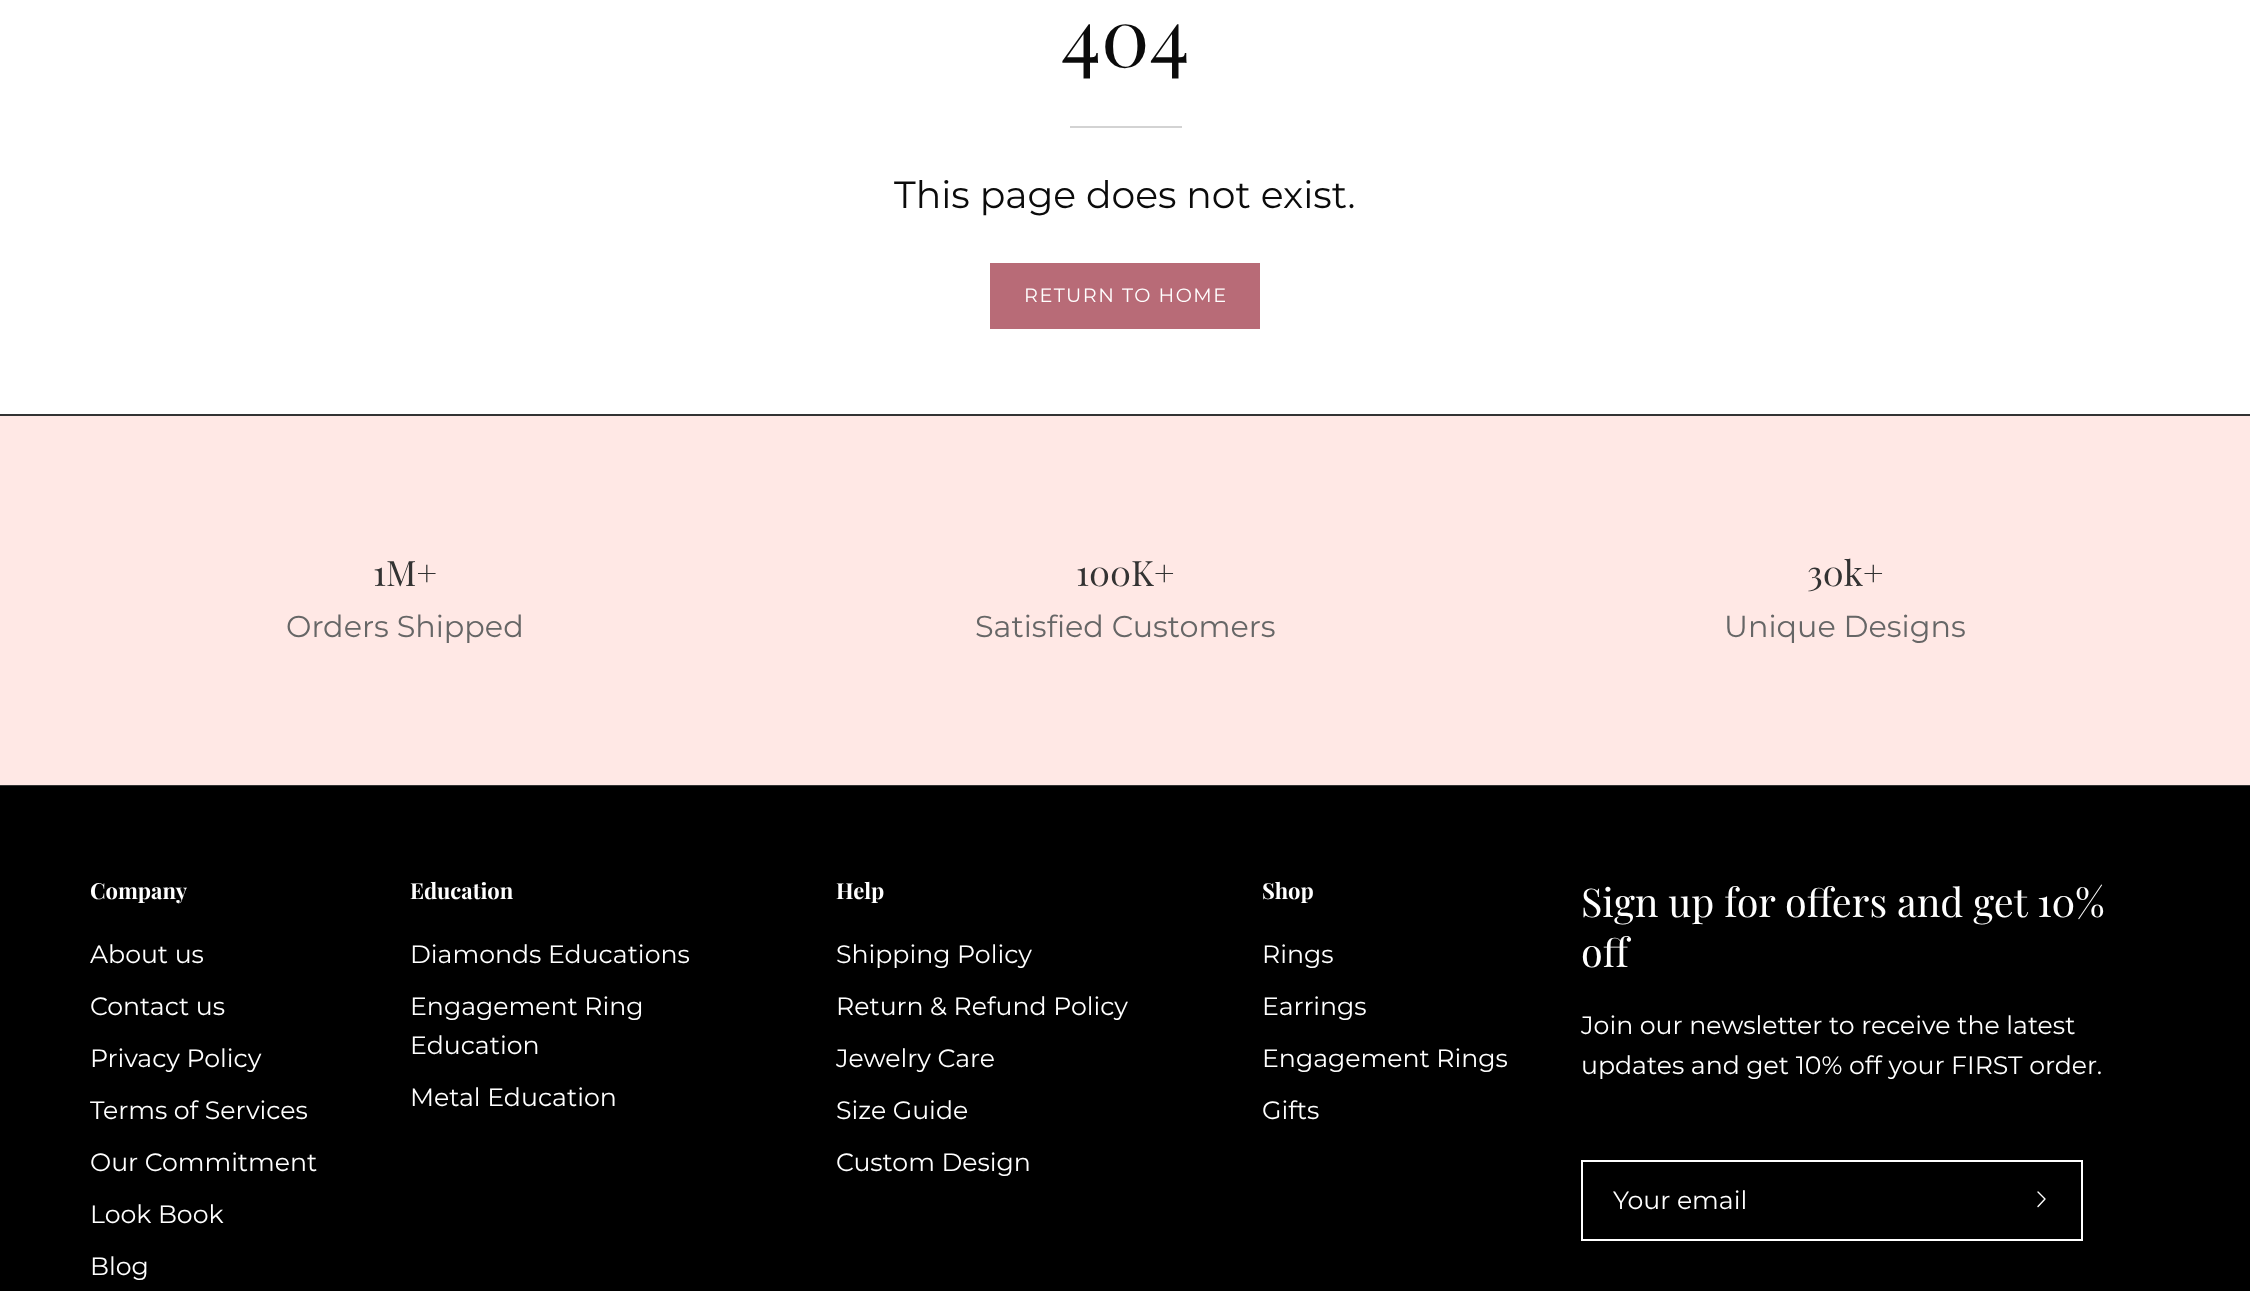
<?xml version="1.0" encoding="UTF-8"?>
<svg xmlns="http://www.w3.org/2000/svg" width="2250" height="1291">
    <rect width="100%" height="100%" fill="#FFFFFF"/>
    <text x="1061" y="67" font-family="Playfair Display" font-size="81" fill="#0B0B0B">404</text>
    <rect x="1070" y="126" width="112" height="2" fill="#D3D3D3"/>
    <text x="894" y="208" font-family="Montserrat" font-size="37.75" fill="#0B0B0B">This page does not exist.</text>
    <rect x="990" y="263" width="270" height="66" fill="#B86B77"/>
    <text x="1024" y="302" font-family="Montserrat" font-size="19.25" letter-spacing="1.5" fill="#FFFFFF">RETURN TO HOME</text>
    <rect x="0" y="416" width="2250" height="369" fill="#FFE8E5"/>
    <rect x="0" y="414" width="2250" height="2" fill="#333333"/>
    <rect x="0" y="785" width="2250" height="1" fill="#333333"/>
    <text x="373" y="586" font-family="Playfair Display" font-size="35" fill="#333333">1M+</text>
    <text x="286" y="637" font-family="Montserrat" font-size="30.25" fill="#666666">Orders Shipped</text>
    <text x="1076" y="586" font-family="Playfair Display" font-size="35" fill="#333333">100K+</text>
    <text x="975" y="637" font-family="Montserrat" font-size="30.25" fill="#666666">Satisfied Customers</text>
    <text x="1807" y="586" font-family="Playfair Display" font-size="35" fill="#333333">30k+</text>
    <text x="1724" y="637" font-family="Montserrat" font-size="30.25" fill="#666666">Unique Designs</text>
    <rect x="0" y="786" width="2250" height="505" fill="#000000"/>
    <text x="90" y="899" font-family="Playfair Display" font-size="22" font-weight="700" fill="#FFFFFF">Company</text>
    <text x="90" y="963" font-family="Montserrat" font-size="25.2" fill="#FFFFFF">About us</text>
    <text x="90" y="1015" font-family="Montserrat" font-size="25.2" fill="#FFFFFF">Contact us</text>
    <text x="90" y="1067" font-family="Montserrat" font-size="25.2" fill="#FFFFFF">Privacy Policy</text>
    <text x="90" y="1119" font-family="Montserrat" font-size="25.2" fill="#FFFFFF">Terms of Services</text>
    <text x="90" y="1171" font-family="Montserrat" font-size="25.2" fill="#FFFFFF">Our Commitment</text>
    <text x="90" y="1223" font-family="Montserrat" font-size="25.2" fill="#FFFFFF">Look Book</text>
    <text x="90" y="1275" font-family="Montserrat" font-size="25.2" fill="#FFFFFF">Blog</text>
    <text x="410" y="899" font-family="Playfair Display" font-size="22" font-weight="700" fill="#FFFFFF">Education</text>
    <text x="410" y="963" font-family="Montserrat" font-size="25.2" fill="#FFFFFF">Diamonds Educations</text>
    <text font-family="Montserrat" font-size="25.2" fill="#FFFFFF">
        <tspan x="410" y="1015">Engagement Ring</tspan>
        <tspan x="410" y="1054">Education</tspan>
    </text>
    <text x="410" y="1106" font-family="Montserrat" font-size="25.2" fill="#FFFFFF">Metal Education</text>
    <text x="836" y="899" font-family="Playfair Display" font-size="22" font-weight="700" fill="#FFFFFF">Help</text>
    <text x="836" y="963" font-family="Montserrat" font-size="25.2" fill="#FFFFFF">Shipping Policy</text>
    <text x="836" y="1015" font-family="Montserrat" font-size="25.2" fill="#FFFFFF">Return &amp; Refund Policy</text>
    <text x="836" y="1067" font-family="Montserrat" font-size="25.2" fill="#FFFFFF">Jewelry Care</text>
    <text x="836" y="1119" font-family="Montserrat" font-size="25.2" fill="#FFFFFF">Size Guide</text>
    <text x="836" y="1171" font-family="Montserrat" font-size="25.2" fill="#FFFFFF">Custom Design</text>
    <text x="1262" y="899" font-family="Playfair Display" font-size="22" font-weight="700" fill="#FFFFFF">Shop</text>
    <text x="1262" y="963" font-family="Montserrat" font-size="25.2" fill="#FFFFFF">Rings</text>
    <text x="1262" y="1015" font-family="Montserrat" font-size="25.2" fill="#FFFFFF">Earrings</text>
    <text x="1262" y="1067" font-family="Montserrat" font-size="25.2" fill="#FFFFFF">Engagement Rings</text>
    <text x="1262" y="1119" font-family="Montserrat" font-size="25.2" fill="#FFFFFF">Gifts</text>
    <text font-family="Playfair Display" font-size="39.6" fill="#FFFFFF">
        <tspan x="1581" y="917">Sign up for offers and get 10%</tspan>
        <tspan x="1581" y="967">off</tspan>
    </text>
    <text font-family="Montserrat" font-size="25.2" fill="#FFFFFF">
        <tspan x="1581" y="1034">Join our newsletter to receive the latest</tspan>
        <tspan x="1581" y="1074">updates and get 10% off your FIRST order.</tspan>
    </text>
    <rect x="1581" y="1160" width="501" height="2" fill="#FFFFFF"/>
    <rect x="1581" y="1239" width="420" height="2" fill="#FFFFFF"/>
    <rect x="1581" y="1160" width="2" height="81" fill="#FFFFFF"/>
    <text x="1613" y="1209" font-family="Montserrat" font-size="25.2" fill="#FFFFFF">Your email</text>
    <rect x="2081" y="1160" width="2" height="81" fill="#FFFFFF"/>
    <rect x="2001" y="1239" width="81" height="2" fill="#FFFFFF"/>
    <path d="M 2038 1192 L 2045 1199 L 2038 1206.5" fill="none" stroke="#FFFFFF" stroke-width="1.4" stroke-linecap="round" stroke-linejoin="round"/>
</svg>
